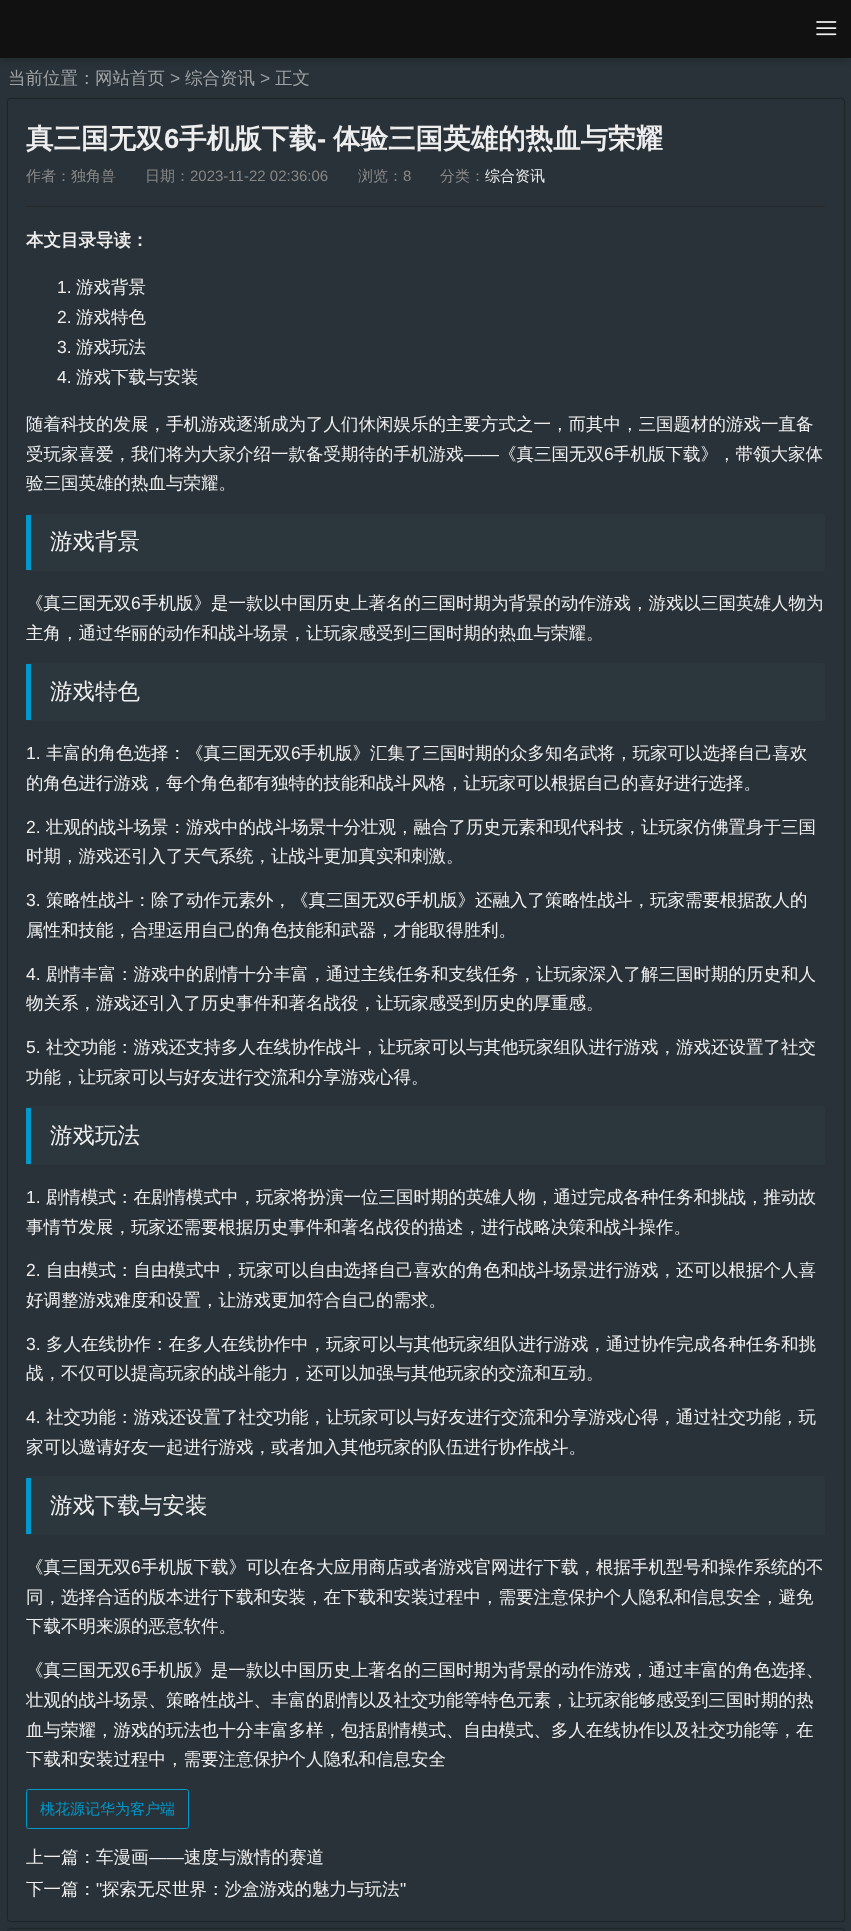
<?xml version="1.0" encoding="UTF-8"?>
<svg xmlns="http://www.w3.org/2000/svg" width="851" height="1931">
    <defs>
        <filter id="blur1" x="-50%" y="-200%" width="200%" height="500%"><feGaussianBlur stdDeviation="5"/></filter>
        <clipPath id="clip1"><path d="M 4 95 H 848 V 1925 H 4 Z M 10.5 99 H 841.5 C 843 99 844 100 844 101.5 V 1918.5 C 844 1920 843 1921 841.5 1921 H 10.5 C 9 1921 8 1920 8 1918.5 V 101.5 C 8 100 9 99 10.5 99 Z" clip-rule="evenodd"/></clipPath>
        <filter id="blur2" x="-50%" y="-200%" width="200%" height="500%"><feGaussianBlur stdDeviation="1"/></filter>
        <clipPath id="clip2"><path d="M 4 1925 H 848 V 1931 H 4 Z M 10.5 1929 H 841.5 C 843 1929 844 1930 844 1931.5 V 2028.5 C 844 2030 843 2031 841.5 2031 H 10.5 C 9 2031 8 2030 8 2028.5 V 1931.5 C 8 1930 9 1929 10.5 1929 Z" clip-rule="evenodd"/></clipPath>
    </defs>
    <rect width="100%" height="100%" fill="#293238"/>
    <rect x="0" y="3" width="851" height="57" fill="#000000" fill-opacity="0.2" filter="url(#blur1)"/>
    <rect x="0" y="0" width="851" height="58" fill="#111111"/>
    <image x="816" y="21" width="21" height="15" href="img_01.png"/>
    <text x="8" y="84" font-family="WenQuanYi Zen Hei" font-size="17.5" font-weight="500" fill="#9FA3A5">当前位置：</text>
    <text x="95" y="84" font-family="WenQuanYi Zen Hei" font-size="17.5" font-weight="500" fill="#9FA3A5">网站首页</text>
    <text x="170" y="84" font-family="Liberation Sans" font-size="17.5" fill="#9FA3A5">&gt;</text>
    <text x="185" y="84" font-family="WenQuanYi Zen Hei" font-size="17.5" font-weight="500" fill="#9FA3A5">综合资讯</text>
    <text x="260" y="84" font-family="Liberation Sans" font-size="17.5" fill="#9FA3A5">&gt;</text>
    <text x="275" y="84" font-family="WenQuanYi Zen Hei" font-size="17.5" font-weight="500" fill="#9FA3A5">正文</text>
    <g clip-path="url(#clip1)">
        <rect x="8" y="99" width="836" height="1822" rx="2.5" fill="#000000" fill-opacity="0.8" filter="url(#blur2)"/>
    </g>
    <rect x="26" y="206" width="799" height="1" fill="#292929"/>
    <text x="26" y="148" font-family="WenQuanYi Zen Hei" font-size="27.5" font-weight="700" fill="#EEEEEE">真三国无双</text>
    <text x="164" y="148" font-family="Liberation Sans" font-size="27.5" font-weight="700" fill="#EEEEEE">6</text>
    <text x="179" y="148" font-family="WenQuanYi Zen Hei" font-size="27.5" font-weight="700" fill="#EEEEEE">手机版下载</text>
    <text x="317" y="148" font-family="Liberation Sans" font-size="27.5" font-weight="700" fill="#EEEEEE">-</text>
    <text x="333" y="148" font-family="WenQuanYi Zen Hei" font-size="27.5" font-weight="700" fill="#EEEEEE">体验三国英雄的热血与荣耀</text>
    <text x="26" y="181" font-family="WenQuanYi Zen Hei" font-size="15" font-weight="500" fill="#888888">作者：独角兽</text>
    <text x="145" y="181" font-family="WenQuanYi Zen Hei" font-size="15" font-weight="500" fill="#888888">日期：</text>
    <text x="190" y="181" font-family="Liberation Sans" font-size="15" fill="#888888">2023-11-22 02:36:06</text>
    <text x="358" y="181" font-family="WenQuanYi Zen Hei" font-size="15" font-weight="500" fill="#888888">浏览：</text>
    <text x="403" y="181" font-family="Liberation Sans" font-size="15" fill="#888888">8</text>
    <text x="440" y="181" font-family="WenQuanYi Zen Hei" font-size="15" font-weight="500" fill="#888888">分类：</text>
    <text x="485" y="181" font-family="WenQuanYi Zen Hei" font-size="15" font-weight="500" fill="#EEEEEE">综合资讯</text>
    <text x="26" y="246" font-family="WenQuanYi Zen Hei" font-size="17.5" font-weight="700" fill="#EEEEEE">本文目录导读：</text>
    <text x="57" y="293" font-family="Liberation Sans" font-size="17.5" fill="#EEEEEE">1.</text>
    <text x="76" y="293" font-family="WenQuanYi Zen Hei" font-size="17.5" font-weight="500" fill="#EEEEEE">游戏背景</text>
    <text x="57" y="323" font-family="Liberation Sans" font-size="17.5" fill="#EEEEEE">2.</text>
    <text x="76" y="323" font-family="WenQuanYi Zen Hei" font-size="17.5" font-weight="500" fill="#EEEEEE">游戏特色</text>
    <text x="57" y="353" font-family="Liberation Sans" font-size="17.5" fill="#EEEEEE">3.</text>
    <text x="76" y="353" font-family="WenQuanYi Zen Hei" font-size="17.5" font-weight="500" fill="#EEEEEE">游戏玩法</text>
    <text x="57" y="383" font-family="Liberation Sans" font-size="17.5" fill="#EEEEEE">4.</text>
    <text x="76" y="383" font-family="WenQuanYi Zen Hei" font-size="17.5" font-weight="500" fill="#EEEEEE">游戏下载与安装</text>
    <text font-family="WenQuanYi Zen Hei" font-size="17.5" font-weight="500" fill="#EEEEEE">
        <tspan x="26" y="430">随着科技的发展，手机游戏逐渐成为了人们休闲娱乐的主要方式之一，而其中，三国题材的游戏一直备</tspan>
        <tspan x="26" y="460">受玩家喜爱，我们将为大家介绍一款备受期待的手机游戏</tspan>
    </text>
    <text x="464" y="460" font-family="Liberation Sans" font-size="17.5" fill="#EEEEEE">——</text>
    <text x="499" y="460" font-family="WenQuanYi Zen Hei" font-size="17.5" font-weight="500" fill="#EEEEEE">《真三国无双</text>
    <text x="604" y="460" font-family="Liberation Sans" font-size="17.5" fill="#EEEEEE">6</text>
    <text x="613" y="460" font-family="WenQuanYi Zen Hei" font-size="17.5" font-weight="500" fill="#EEEEEE">手机版下载》，带领大家体</text>
    <text x="26" y="489" font-family="WenQuanYi Zen Hei" font-size="17.5" font-weight="500" fill="#EEEEEE">验三国英雄的热血与荣耀。</text>
    <rect x="26" y="514" width="799" height="57" rx="2.5" fill="#2C363D"/>
    <rect x="26" y="515" width="5" height="55" fill="#0099CC"/>
    <text x="50" y="549" font-family="WenQuanYi Zen Hei" font-size="22.5" font-weight="500" fill="#EEEEEE">游戏背景</text>
    <text x="26" y="609" font-family="WenQuanYi Zen Hei" font-size="17.5" font-weight="500" fill="#EEEEEE">《真三国无双</text>
    <text x="131" y="609" font-family="Liberation Sans" font-size="17.5" fill="#EEEEEE">6</text>
    <text x="141" y="609" font-family="WenQuanYi Zen Hei" font-size="17.5" font-weight="500" fill="#EEEEEE">手机版》是一款以中国历史上著名的三国时期为背景的动作游戏，游戏以三国英雄人物为</text>
    <text x="26" y="639" font-family="WenQuanYi Zen Hei" font-size="17.5" font-weight="500" fill="#EEEEEE">主角，通过华丽的动作和战斗场景，让玩家感受到三国时期的热血与荣耀。</text>
    <rect x="26" y="663" width="799" height="58" rx="2.5" fill="#2C363D"/>
    <rect x="26" y="664" width="5" height="56" fill="#0099CC"/>
    <text x="50" y="699" font-family="WenQuanYi Zen Hei" font-size="22.5" font-weight="500" fill="#EEEEEE">游戏特色</text>
    <text x="26" y="759" font-family="Liberation Sans" font-size="17.5" fill="#EEEEEE">1.</text>
    <text x="46" y="759" font-family="WenQuanYi Zen Hei" font-size="17.5" font-weight="500" fill="#EEEEEE">丰富的角色选择：《真三国无双</text>
    <text x="291" y="759" font-family="Liberation Sans" font-size="17.5" fill="#EEEEEE">6</text>
    <text x="300" y="759" font-family="WenQuanYi Zen Hei" font-size="17.5" font-weight="500" fill="#EEEEEE">手机版》汇集了三国时期的众多知名武将，玩家可以选择自己喜欢</text>
    <text x="26" y="789" font-family="WenQuanYi Zen Hei" font-size="17.5" font-weight="500" fill="#EEEEEE">的角色进行游戏，每个角色都有独特的技能和战斗风格，让玩家可以根据自己的喜好进行选择。</text>
    <text x="26" y="833" font-family="Liberation Sans" font-size="17.5" fill="#EEEEEE">2.</text>
    <text x="46" y="833" font-family="WenQuanYi Zen Hei" font-size="17.5" font-weight="500" fill="#EEEEEE">壮观的战斗场景：游戏中的战斗场景十分壮观，融合了历史元素和现代科技，让玩家仿佛置身于三国</text>
    <text x="26" y="862" font-family="WenQuanYi Zen Hei" font-size="17.5" font-weight="500" fill="#EEEEEE">时期，游戏还引入了天气系统，让战斗更加真实和刺激。</text>
    <text x="26" y="906" font-family="Liberation Sans" font-size="17.5" fill="#EEEEEE">3.</text>
    <text x="46" y="906" font-family="WenQuanYi Zen Hei" font-size="17.5" font-weight="500" fill="#EEEEEE">策略性战斗：除了动作元素外，《真三国无双</text>
    <text x="396" y="906" font-family="Liberation Sans" font-size="17.5" fill="#EEEEEE">6</text>
    <text x="405" y="906" font-family="WenQuanYi Zen Hei" font-size="17.5" font-weight="500" fill="#EEEEEE">手机版》还融入了策略性战斗，玩家需要根据敌人的</text>
    <text x="26" y="936" font-family="WenQuanYi Zen Hei" font-size="17.5" font-weight="500" fill="#EEEEEE">属性和技能，合理运用自己的角色技能和武器，才能取得胜利。</text>
    <text x="26" y="980" font-family="Liberation Sans" font-size="17.5" fill="#EEEEEE">4.</text>
    <text x="46" y="980" font-family="WenQuanYi Zen Hei" font-size="17.5" font-weight="500" fill="#EEEEEE">剧情丰富：游戏中的剧情十分丰富，通过主线任务和支线任务，让玩家深入了解三国时期的历史和人</text>
    <text x="26" y="1009" font-family="WenQuanYi Zen Hei" font-size="17.5" font-weight="500" fill="#EEEEEE">物关系，游戏还引入了历史事件和著名战役，让玩家感受到历史的厚重感。</text>
    <text x="26" y="1053" font-family="Liberation Sans" font-size="17.5" fill="#EEEEEE">5.</text>
    <text x="46" y="1053" font-family="WenQuanYi Zen Hei" font-size="17.5" font-weight="500" fill="#EEEEEE">社交功能：游戏还支持多人在线协作战斗，让玩家可以与其他玩家组队进行游戏，游戏还设置了社交</text>
    <text x="26" y="1083" font-family="WenQuanYi Zen Hei" font-size="17.5" font-weight="500" fill="#EEEEEE">功能，让玩家可以与好友进行交流和分享游戏心得。</text>
    <rect x="26" y="1106" width="799" height="59" rx="2.5" fill="#2C363D"/>
    <rect x="26" y="1108" width="5" height="56" fill="#0099CC"/>
    <text x="50" y="1143" font-family="WenQuanYi Zen Hei" font-size="22.5" font-weight="500" fill="#EEEEEE">游戏玩法</text>
    <text x="26" y="1203" font-family="Liberation Sans" font-size="17.5" fill="#EEEEEE">1.</text>
    <text x="46" y="1203" font-family="WenQuanYi Zen Hei" font-size="17.5" font-weight="500" fill="#EEEEEE">剧情模式：在剧情模式中，玩家将扮演一位三国时期的英雄人物，通过完成各种任务和挑战，推动故</text>
    <text x="26" y="1233" font-family="WenQuanYi Zen Hei" font-size="17.5" font-weight="500" fill="#EEEEEE">事情节发展，玩家还需要根据历史事件和著名战役的描述，进行战略决策和战斗操作。</text>
    <text x="26" y="1276" font-family="Liberation Sans" font-size="17.5" fill="#EEEEEE">2.</text>
    <text x="46" y="1276" font-family="WenQuanYi Zen Hei" font-size="17.5" font-weight="500" fill="#EEEEEE">自由模式：自由模式中，玩家可以自由选择自己喜欢的角色和战斗场景进行游戏，还可以根据个人喜</text>
    <text x="26" y="1306" font-family="WenQuanYi Zen Hei" font-size="17.5" font-weight="500" fill="#EEEEEE">好调整游戏难度和设置，让游戏更加符合自己的需求。</text>
    <text x="26" y="1350" font-family="Liberation Sans" font-size="17.5" fill="#EEEEEE">3.</text>
    <text x="46" y="1350" font-family="WenQuanYi Zen Hei" font-size="17.5" font-weight="500" fill="#EEEEEE">多人在线协作：在多人在线协作中，玩家可以与其他玩家组队进行游戏，通过协作完成各种任务和挑</text>
    <text x="26" y="1379" font-family="WenQuanYi Zen Hei" font-size="17.5" font-weight="500" fill="#EEEEEE">战，不仅可以提高玩家的战斗能力，还可以加强与其他玩家的交流和互动。</text>
    <text x="26" y="1423" font-family="Liberation Sans" font-size="17.5" fill="#EEEEEE">4.</text>
    <text x="46" y="1423" font-family="WenQuanYi Zen Hei" font-size="17.5" font-weight="500" fill="#EEEEEE">社交功能：游戏还设置了社交功能，让玩家可以与好友进行交流和分享游戏心得，通过社交功能，玩</text>
    <text x="26" y="1453" font-family="WenQuanYi Zen Hei" font-size="17.5" font-weight="500" fill="#EEEEEE">家可以邀请好友一起进行游戏，或者加入其他玩家的队伍进行协作战斗。</text>
    <rect x="26" y="1476" width="799" height="59" rx="2.5" fill="#2C363D"/>
    <rect x="26" y="1478" width="5" height="56" fill="#0099CC"/>
    <text x="50" y="1513" font-family="WenQuanYi Zen Hei" font-size="22.5" font-weight="500" fill="#EEEEEE">游戏下载与安装</text>
    <text x="26" y="1573" font-family="WenQuanYi Zen Hei" font-size="17.5" font-weight="500" fill="#EEEEEE">《真三国无双</text>
    <text x="131" y="1573" font-family="Liberation Sans" font-size="17.5" fill="#EEEEEE">6</text>
    <text x="141" y="1573" font-family="WenQuanYi Zen Hei" font-size="17.5" font-weight="500" fill="#EEEEEE">手机版下载》可以在各大应用商店或者游戏官网进行下载，根据手机型号和操作系统的不</text>
    <text font-family="WenQuanYi Zen Hei" font-size="17.5" font-weight="500" fill="#EEEEEE">
        <tspan x="26" y="1603">同，选择合适的版本进行下载和安装，在下载和安装过程中，需要注意保护个人隐私和信息安全，避免</tspan>
        <tspan x="26" y="1632">下载不明来源的恶意软件。</tspan>
    </text>
    <text x="26" y="1676" font-family="WenQuanYi Zen Hei" font-size="17.5" font-weight="500" fill="#EEEEEE">《真三国无双</text>
    <text x="131" y="1676" font-family="Liberation Sans" font-size="17.5" fill="#EEEEEE">6</text>
    <text x="141" y="1676" font-family="WenQuanYi Zen Hei" font-size="17.5" font-weight="500" fill="#EEEEEE">手机版》是一款以中国历史上著名的三国时期为背景的动作游戏，通过丰富的角色选择、</text>
    <text font-family="WenQuanYi Zen Hei" font-size="17.5" font-weight="500" fill="#EEEEEE">
        <tspan x="26" y="1706">壮观的战斗场景、策略性战斗、丰富的剧情以及社交功能等特色元素，让玩家能够感受到三国时期的热</tspan>
        <tspan x="26" y="1736">血与荣耀，游戏的玩法也十分丰富多样，包括剧情模式、自由模式、多人在线协作以及社交功能等，在</tspan>
        <tspan x="26" y="1765">下载和安装过程中，需要注意保护个人隐私和信息安全</tspan>
    </text>
    <rect x="26.5" y="1789.5" width="162" height="39" rx="2" fill="none" stroke="#0099CC"/>
    <text x="40" y="1814" font-family="WenQuanYi Zen Hei" font-size="15" font-weight="500" fill="#0099CC">桃花源记华为客户端</text>
    <text x="26" y="1863" font-family="WenQuanYi Zen Hei" font-size="17.5" font-weight="500" fill="#EEEEEE">上一篇：</text>
    <text x="96" y="1863" font-family="WenQuanYi Zen Hei" font-size="17.5" font-weight="500" fill="#EEEEEE">车漫画</text>
    <text x="149" y="1863" font-family="Liberation Sans" font-size="17.5" fill="#EEEEEE">——</text>
    <text x="184" y="1863" font-family="WenQuanYi Zen Hei" font-size="17.5" font-weight="500" fill="#EEEEEE">速度与激情的赛道</text>
    <text x="26" y="1895" font-family="WenQuanYi Zen Hei" font-size="17.5" font-weight="500" fill="#EEEEEE">下一篇：</text>
    <text x="96" y="1895" font-family="Liberation Sans" font-size="17.5" fill="#EEEEEE">"</text>
    <text x="102" y="1895" font-family="WenQuanYi Zen Hei" font-size="17.5" font-weight="500" fill="#EEEEEE">探索无尽世界：沙盒游戏的魅力与玩法</text>
    <text x="400" y="1895" font-family="Liberation Sans" font-size="17.5" fill="#EEEEEE">"</text>
    <g clip-path="url(#clip2)">
        <rect x="8" y="1929" width="836" height="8" rx="2.5" fill="#000000" fill-opacity="0.8" filter="url(#blur2)"/>
    </g>
</svg>
